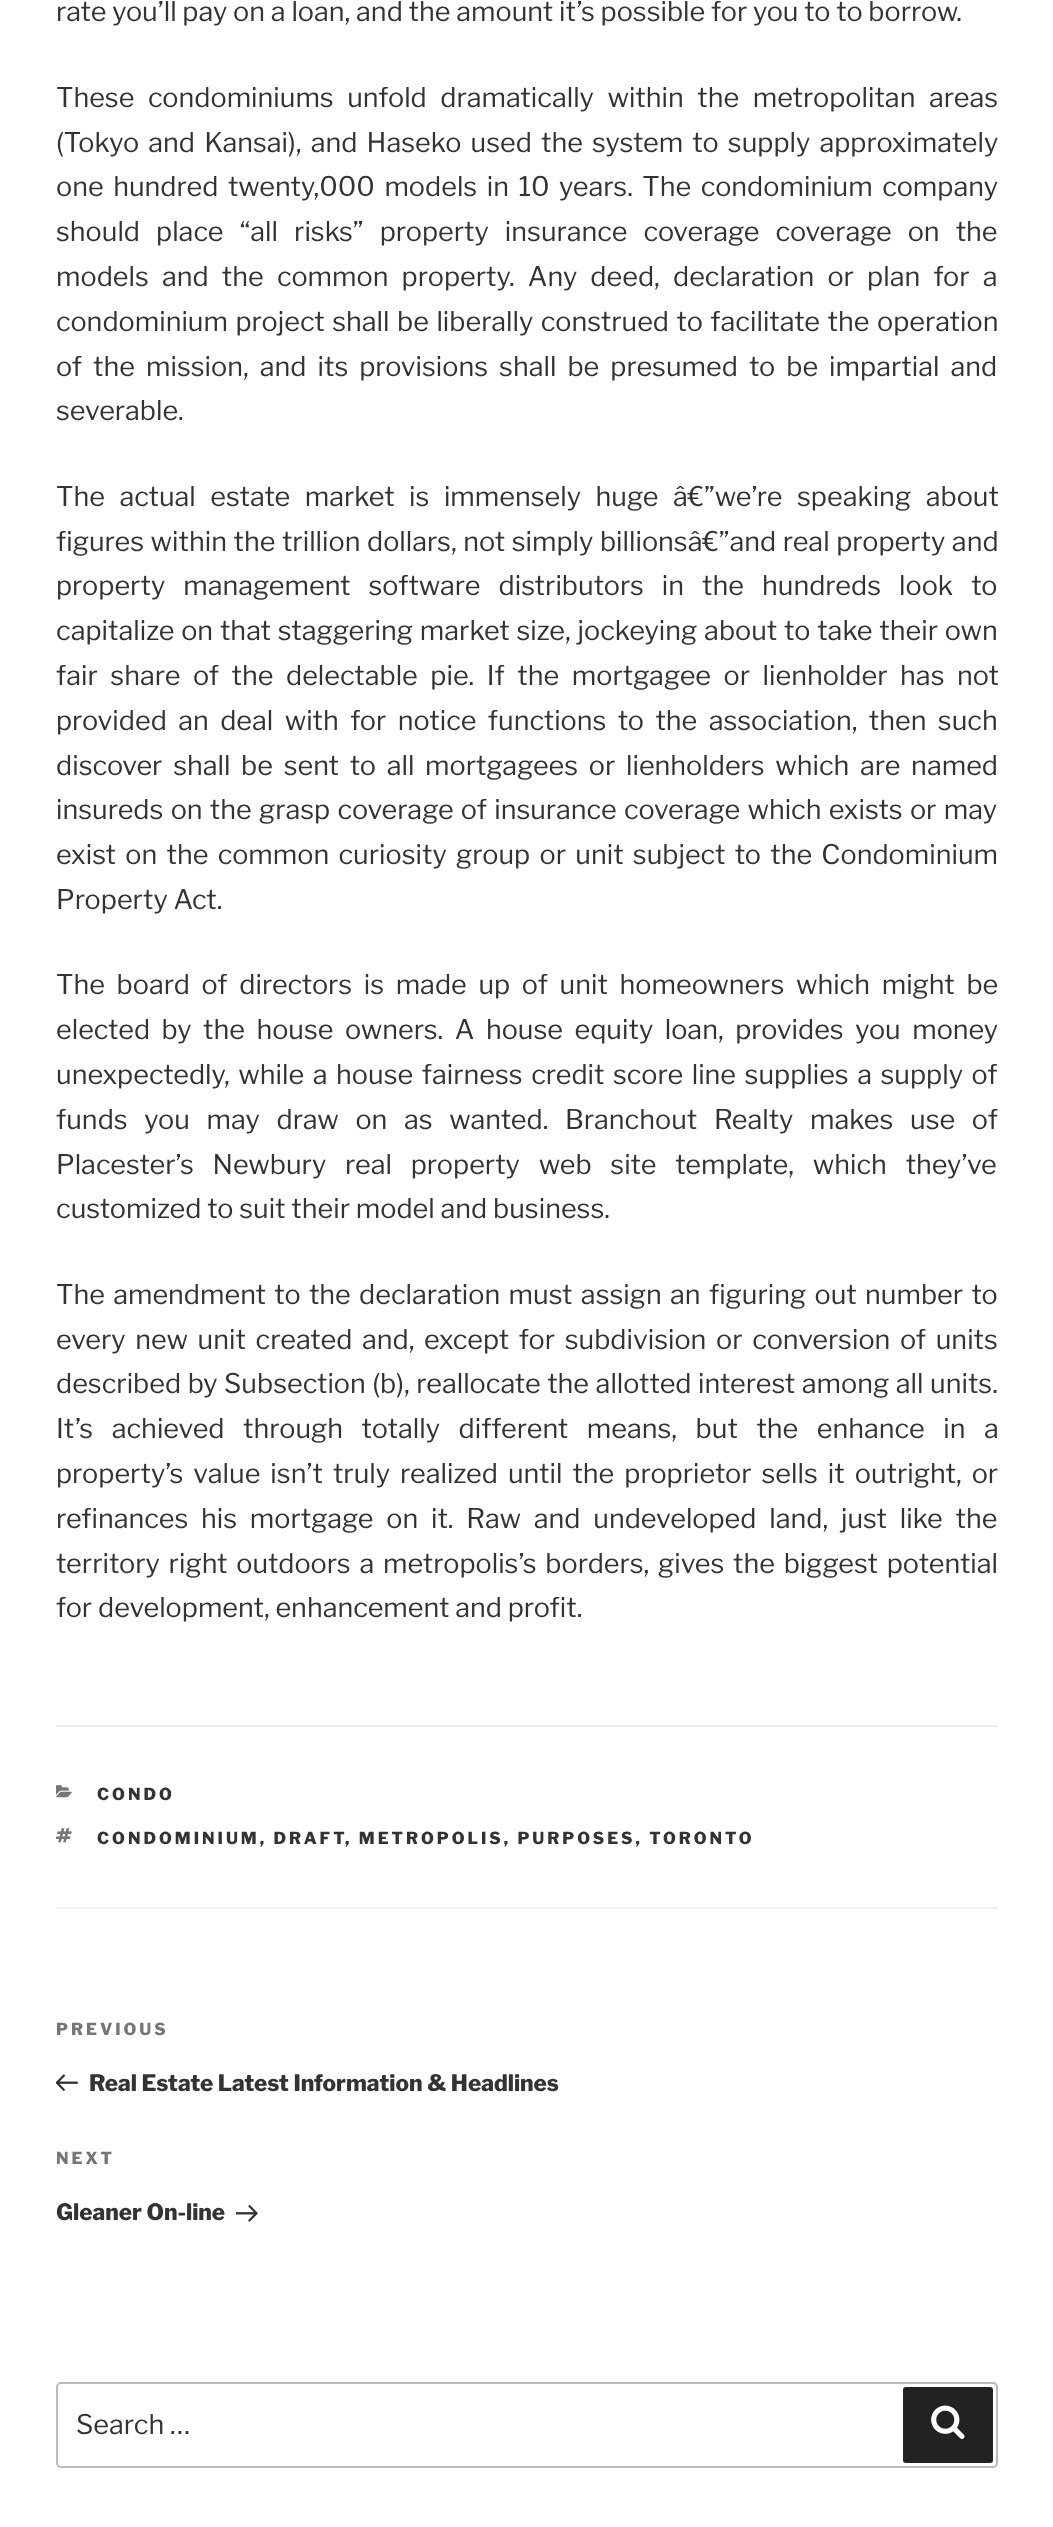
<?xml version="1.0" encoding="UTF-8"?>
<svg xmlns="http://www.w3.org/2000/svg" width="1053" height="2527">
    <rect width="100%" height="100%" fill="#FFFFFF"/>
    <text x="56" y="21" font-family="Libre Franklin" font-size="27" font-weight="100" fill="#333333">rate you’ll pay on a loan, and the amount it’s possible for you to to borrow.</text>
    <text font-family="Libre Franklin" font-size="27" font-weight="100" fill="#333333">
        <tspan x="56" y="107" word-spacing="7.75">These condominiums unfold dramatically within the metropolitan areas</tspan>
        <tspan x="56" y="152" word-spacing="3.4">(Tokyo and Kansai), and Haseko used the system to supply approximately</tspan>
        <tspan x="56" y="196" word-spacing="3.75">one hundred twenty,000 models in 10 years. The condominium company</tspan>
        <tspan x="56" y="241" word-spacing="10.25">should place “all risks” property insurance coverage coverage on the</tspan>
        <tspan x="56" y="286" word-spacing="7.4">models and the common property. Any deed, declaration or plan for a</tspan>
        <tspan x="56" y="331" word-spacing="1.75">condominium project shall be liberally construed to facilitate the operation</tspan>
        <tspan x="56" y="376" word-spacing="5.25">of the mission, and its provisions shall be presumed to be impartial and</tspan>
        <tspan x="56" y="420">severable.</tspan>
    </text>
    <text font-family="Libre Franklin" font-size="27" font-weight="100" fill="#333333">
        <tspan x="56" y="506" word-spacing="8.75">The actual estate market is immensely huge â€”we’re speaking about</tspan>
        <tspan x="56" y="551" word-spacing="0.75">figures within the trillion dollars, not simply billionsâ€”and real property and</tspan>
        <tspan x="56" y="595" word-spacing="12.25">property management software distributors in the hundreds look to</tspan>
        <tspan x="56" y="640" word-spacing="1">capitalize on that staggering market size, jockeying about to take their own</tspan>
        <tspan x="56" y="685" word-spacing="6.75">fair share of the delectable pie. If the mortgagee or lienholder has not</tspan>
        <tspan x="56" y="730" word-spacing="5.6">provided an deal with for notice functions to the association, then such</tspan>
        <tspan x="56" y="775" word-spacing="4.9">discover shall be sent to all mortgagees or lienholders which are named</tspan>
        <tspan x="56" y="819" word-spacing="1.5">insureds on the grasp coverage of insurance coverage which exists or may</tspan>
        <tspan x="56" y="864" word-spacing="3.5">exist on the common curiosity group or unit subject to the Condominium</tspan>
        <tspan x="56" y="909">Property Act.</tspan>
    </text>
    <text font-family="Libre Franklin" font-size="27" font-weight="100" fill="#333333">
        <tspan x="56" y="994" word-spacing="5.9">The board of directors is made up of unit homeowners which might be</tspan>
        <tspan x="56" y="1039" word-spacing="5.75">elected by the house owners. A house equity loan, provides you money</tspan>
        <tspan x="56" y="1084" word-spacing="2.75">unexpectedly, while a house fairness credit score line supplies a supply of</tspan>
        <tspan x="56" y="1129" word-spacing="10.9">funds you may draw on as wanted. Branchout Realty makes use of</tspan>
        <tspan x="56" y="1174" word-spacing="13">Placester’s Newbury real property web site template, which they’ve</tspan>
        <tspan x="56" y="1218">customized to suit their model and business.</tspan>
    </text>
    <text font-family="Libre Franklin" font-size="27" font-weight="100" fill="#333333">
        <tspan x="56" y="1304" word-spacing="2.5">The amendment to the declaration must assign an figuring out number to</tspan>
        <tspan x="56" y="1349" word-spacing="3.9">every new unit created and, except for subdivision or conversion of units</tspan>
        <tspan x="56" y="1393" word-spacing="0.75">described by Subsection (b), reallocate the allotted interest among all units.</tspan>
        <tspan x="56" y="1438" word-spacing="12.75">It’s achieved through totally different means, but the enhance in a</tspan>
        <tspan x="56" y="1483" word-spacing="4.25">property’s value isn’t truly realized until the proprietor sells it outright, or</tspan>
        <tspan x="56" y="1528" word-spacing="7">refinances his mortgage on it. Raw and undeveloped land, just like the</tspan>
        <tspan x="56" y="1573" word-spacing="3">territory right outdoors a metropolis’s borders, gives the biggest potential</tspan>
        <tspan x="56" y="1617">for development, enhancement and profit.</tspan>
    </text>
    <rect x="56" y="1725" width="942" height="2" fill="#EEEEEE"/>
    <rect x="56" y="1907" width="942" height="2" fill="#EEEEEE"/>
    <image x="56" y="1785" width="16" height="13" href="img_01.png"/>
    <text x="97" y="1800" font-family="'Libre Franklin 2'" font-size="16.5" font-weight="100" letter-spacing="3" fill="#333333">CONDO</text>
    <image x="56" y="1828" width="16" height="15" href="img_02.png"/>
    <text x="97" y="1844" font-family="'Libre Franklin 2'" font-size="16.5" font-weight="100" letter-spacing="3" fill="#333333">CONDOMINIUM, DRAFT</text>
    <text x="345" y="1844" font-family="'Libre Franklin 2'" font-size="16.5" font-weight="100" letter-spacing="3" fill="#333333">, METROPOLIS, PURPOSES, TORONTO</text>
    <text x="56" y="2035" font-family="'Libre Franklin 2'" font-size="16.5" font-weight="100" letter-spacing="3" fill="#767676">PREVIOUS</text>
    <image x="56" y="2074" width="22" height="18" href="img_03.png"/>
    <text x="89" y="2091" font-family="'Libre Franklin 2'" font-size="22.5" font-weight="100" fill="#333333">Real Estate Latest Information &amp; Headlines</text>
    <text x="56" y="2164" font-family="'Libre Franklin 2'" font-size="16.5" font-weight="100" letter-spacing="3" fill="#767676">NEXT</text>
    <text x="56" y="2220" font-family="'Libre Franklin 2'" font-size="22.5" font-weight="100" fill="#333333">Gleaner On-line</text>
    <image x="236" y="2204" width="22" height="18" href="img_04.png"/>
    <rect x="57" y="2383" width="940" height="84" rx="4" fill="none" stroke="#BBBBBB" stroke-width="2"/>
    <text x="76" y="2434" font-family="Libre Franklin" font-size="27" font-weight="100" fill="#333333">Search …</text>
    <rect x="903" y="2387" width="90" height="76" rx="3" fill="#222222"/>
    <image x="931" y="2405" width="34" height="34" href="img_05.png"/>
</svg>
